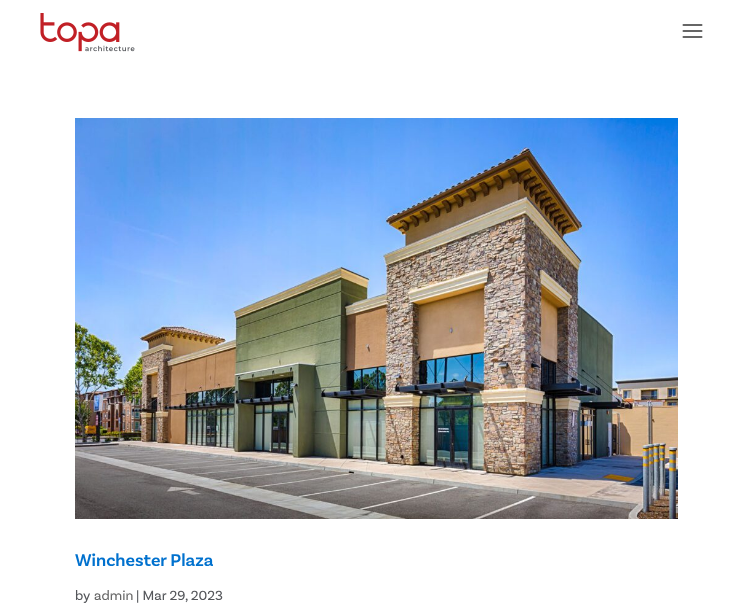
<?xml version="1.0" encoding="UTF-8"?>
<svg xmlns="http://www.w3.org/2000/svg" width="753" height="606">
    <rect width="100%" height="100%" fill="#FFFFFF"/>
    <image x="40" y="13" width="95" height="39" href="img_01.png"/>
    <image x="682" y="24" width="21" height="14" href="img_02.png"/>
    <image x="75" y="118" width="603" height="401" href="img_03.png"/>
    <text x="75" y="566" font-family="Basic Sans" font-size="18" font-weight="600" fill="#0071CE">Winchester Plaza</text>
    <text x="75" y="600" font-family="Basic Sans" font-size="14" fill="#54565A">by</text>
    <text x="94" y="600" font-family="Basic Sans" font-size="14" fill="#666666">admin</text>
    <text x="136" y="600" font-family="Basic Sans" font-size="14" fill="#54565A">| Mar 29, 2023</text>
</svg>
